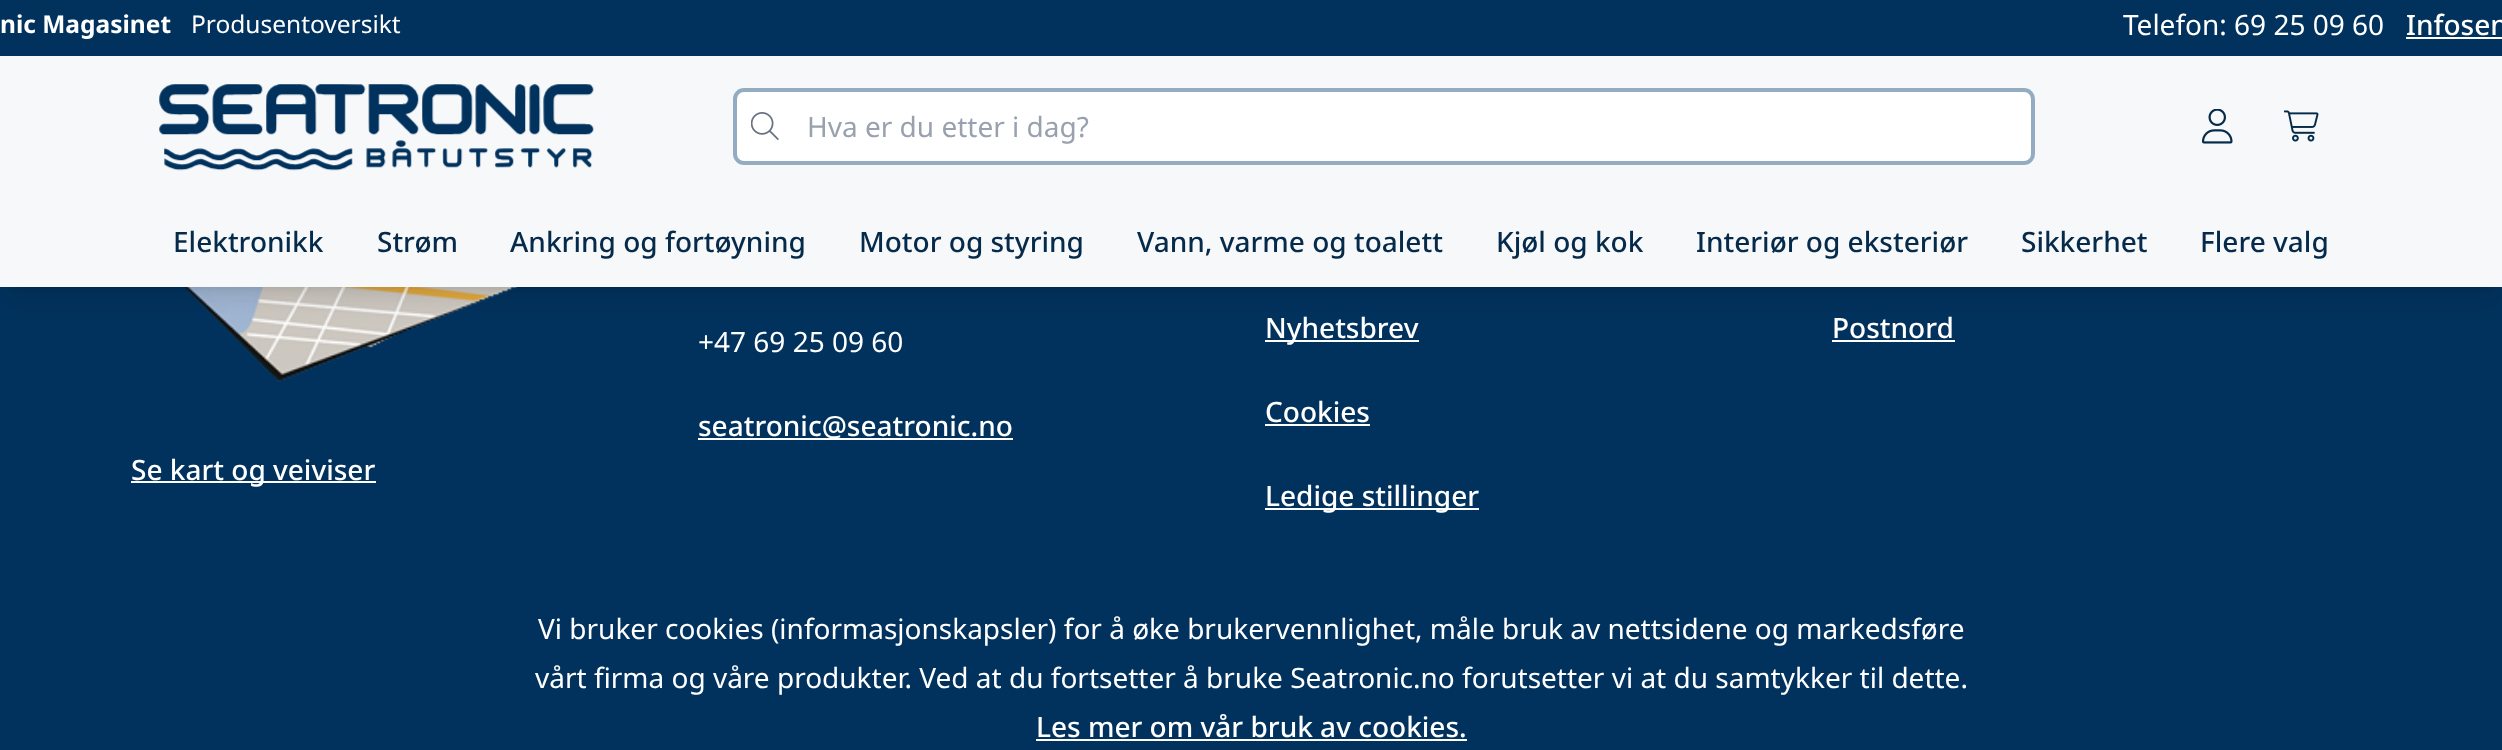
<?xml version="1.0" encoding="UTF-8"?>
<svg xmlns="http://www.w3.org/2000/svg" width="2502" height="750">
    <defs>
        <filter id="blur1" x="-50%" y="-200%" width="200%" height="500%"><feGaussianBlur stdDeviation="5"/></filter>
        <filter id="blur2" x="-50%" y="-200%" width="200%" height="500%"><feGaussianBlur stdDeviation="13"/></filter>
    </defs>
    <rect width="100%" height="100%" fill="#01325D"/>
    <image x="183" y="287" width="334" height="95" href="img_05.png"/>
    <rect x="7" y="14" width="2489" height="273" fill="#000000" fill-opacity="0.1" filter="url(#blur1)"/>
    <rect x="5" y="23" width="2492" height="276" fill="#000000" fill-opacity="0.1" filter="url(#blur2)"/>
    <rect x="0" y="56" width="2502" height="231" fill="#F6F8FA"/>
    <rect x="0" y="9" width="2502" height="47" fill="#01325D"/>
    <text x="0" y="33" font-family="Noto Sans" font-size="24.5" font-weight="700" fill="#FFFFFF">nic Magasinet</text>
    <text x="191" y="33" font-family="Noto Sans" font-size="24.5" fill="#FFFFFF">Produsentoversikt</text>
    <text x="2123" y="35" font-family="Noto Sans" font-size="28" fill="#FFFFFF">Telefon: 69 25 09 60</text>
    <text x="2406" y="35" font-family="Noto Sans" font-size="28" font-weight="500" fill="#FFFFFF">Infosen</text>
    <rect x="2406" y="37" width="96" height="2" fill="#FFFFFF"/>
    <image x="159" y="84" width="435" height="87" href="img_01.png"/>
    <rect x="735" y="90" width="1298" height="73" rx="9" fill="#FFFFFF" stroke="#94ACC2" stroke-width="4"/>
    <image x="751" y="112" width="28" height="28" href="img_02.png"/>
    <text x="807" y="137" font-family="Noto Sans" font-size="28" fill="#99A1AF">Hva er du etter i dag?</text>
    <image x="2201" y="109" width="32" height="35" href="img_03.png"/>
    <image x="2284" y="110" width="35" height="32" href="img_04.png"/>
    <text x="173" y="252" font-family="Noto Sans" font-size="28" font-weight="500" fill="#052A4A">Elektronikk</text>
    <text x="377" y="252" font-family="Noto Sans" font-size="28" font-weight="500" fill="#052A4A">Strøm</text>
    <text x="510" y="252" font-family="Noto Sans" font-size="28" font-weight="500" fill="#052A4A">Ankring og fortøyning</text>
    <text x="859" y="252" font-family="Noto Sans" font-size="28" font-weight="500" fill="#052A4A">Motor og styring</text>
    <text x="1137" y="252" font-family="Noto Sans" font-size="28" font-weight="500" fill="#052A4A">Vann, varme og toalett</text>
    <text x="1496" y="252" font-family="Noto Sans" font-size="28" font-weight="500" fill="#052A4A">Kjøl og kok</text>
    <text x="1696" y="252" font-family="Noto Sans" font-size="28" font-weight="500" fill="#052A4A">Interiør og eksteriør</text>
    <text x="2021" y="252" font-family="Noto Sans" font-size="28" font-weight="500" fill="#052A4A">Sikkerhet</text>
    <text x="2200" y="252" font-family="Noto Sans" font-size="28" font-weight="500" fill="#052A4A">Flere valg</text>
    <rect x="1265" y="340" width="154" height="2" fill="#FFFFFF"/>
    <text x="1265" y="338" font-family="Noto Sans" font-size="28" font-weight="500" fill="#FFFFFF">Nyhetsbrev</text>
    <text x="1265" y="422" font-family="Noto Sans" font-size="28" font-weight="500" fill="#FFFFFF">Cookies</text>
    <rect x="1265" y="424" width="105" height="2" fill="#FFFFFF"/>
    <rect x="1265" y="508" width="214" height="2" fill="#FFFFFF"/>
    <text x="1265" y="506" font-family="Noto Sans" font-size="28" font-weight="500" fill="#FFFFFF">Ledige stillinger</text>
    <text x="1832" y="338" font-family="Noto Sans" font-size="28" font-weight="500" fill="#FFFFFF">Postnord</text>
    <rect x="1832" y="340" width="123" height="2" fill="#FFFFFF"/>
    <text x="698" y="352" font-family="Noto Sans" font-size="28" fill="#FFFFFF">+47 69 25 09 60</text>
    <rect x="698" y="438" width="315" height="2" fill="#FFFFFF"/>
    <text x="698" y="436" font-family="Noto Sans" font-size="28" font-weight="500" fill="#FFFFFF">seatronic@seatronic.no</text>
    <rect x="131" y="481" width="245" height="2" fill="#FFFFFF"/>
    <text x="131" y="480" font-family="Noto Sans" font-size="28" font-weight="500" fill="#FFFFFF">Se kart og veiviser</text>
    <text x="538" y="639" font-family="Noto Sans" font-size="28" fill="#FFFFFF">Vi bruker cookies (informasjonskapsler) for å øke brukervennlighet, måle bruk av nettsidene og markedsføre</text>
    <text x="535" y="688" font-family="Noto Sans" font-size="28" fill="#FFFFFF">vårt firma og våre produkter. Ved at du fortsetter å bruke Seatronic.no forutsetter vi at du samtykker til dette.</text>
    <text x="1036" y="737" font-family="Noto Sans" font-size="28" font-weight="500" fill="#FFFFFF">Les mer om vår bruk av cookies.</text>
    <rect x="1036" y="739" width="431" height="2" fill="#FFFFFF"/>
</svg>
